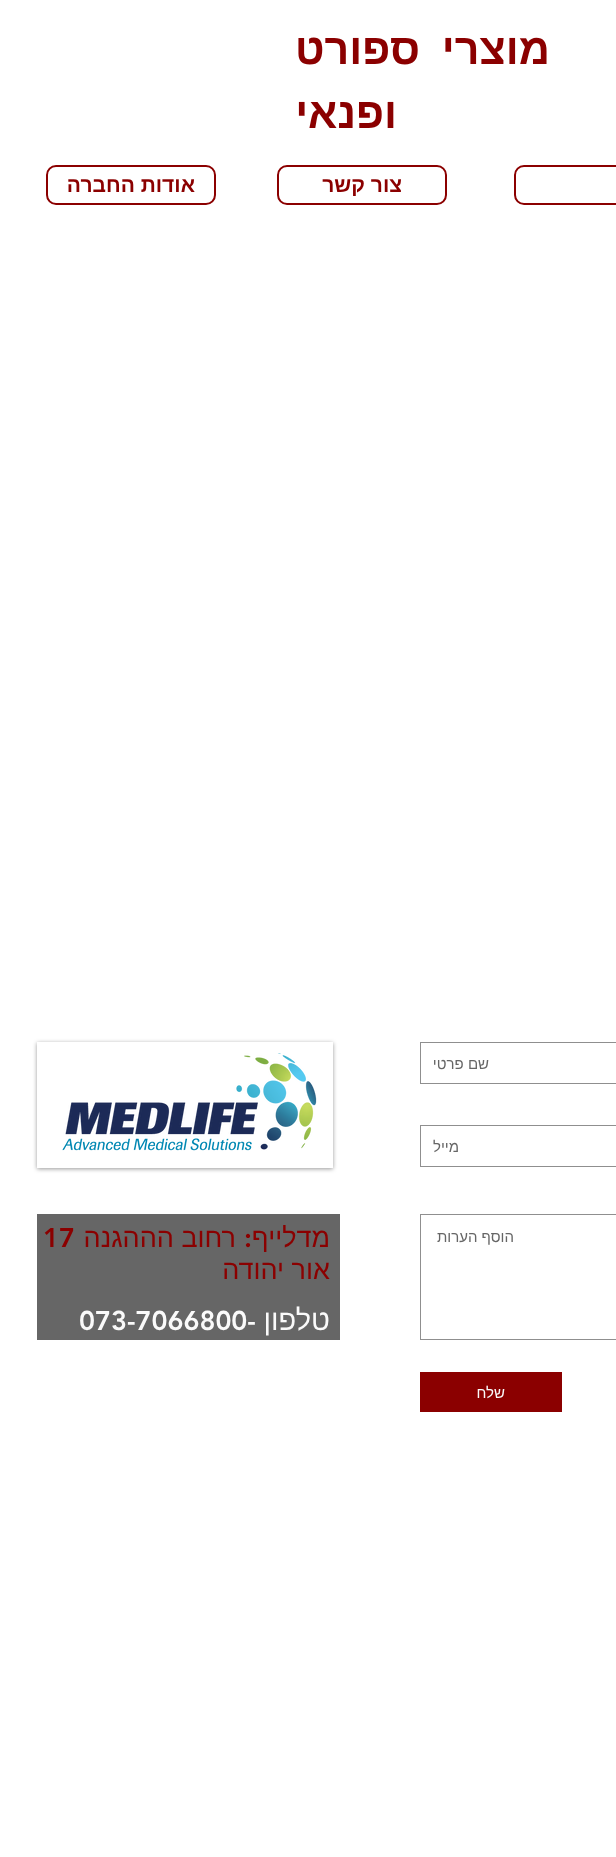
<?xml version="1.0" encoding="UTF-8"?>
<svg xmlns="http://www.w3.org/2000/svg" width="616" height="1857">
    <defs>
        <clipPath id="clip1"><path d="M 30 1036 H 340 V 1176 H 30 Z M 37 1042 H 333 V 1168 H 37 Z" clip-rule="evenodd"/></clipPath>
        <filter id="blur1" x="-50%" y="-200%" width="200%" height="500%"><feGaussianBlur stdDeviation="2"/></filter>
    </defs>
    <rect width="100%" height="100%" fill="#FFFFFF"/>
    <text x="550" y="64" word-spacing="10" font-family="Liberation Sans" font-size="43" font-weight="700" direction="rtl" fill="#8B0000">מוצרי ספורט</text>
    <text x="397" y="128" font-family="Liberation Sans" font-size="43" font-weight="700" direction="rtl" fill="#8B0000">ופנאי</text>
    <rect x="515" y="166" width="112" height="38" rx="9" fill="none" stroke="#8B0000" stroke-width="2"/>
    <rect x="278" y="166" width="168" height="38" rx="9" fill="none" stroke="#8B0000" stroke-width="2"/>
    <text x="402" y="192" font-family="Liberation Sans" font-size="21" font-weight="700" direction="rtl" fill="#8B0000">צור קשר</text>
    <rect x="47" y="166" width="168" height="38" rx="9" fill="none" stroke="#8B0000" stroke-width="2"/>
    <text x="195" y="192" font-family="Liberation Sans" font-size="21" font-weight="700" direction="rtl" fill="#8B0000">אודות החברה</text>
    <rect x="420.5" y="1042.5" width="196" height="41" fill="none" stroke="#8F8F8F"/>
    <text x="489" y="1069" font-family="Liberation Sans" font-size="15" direction="rtl" fill="#666666">שם פרטי</text>
    <rect x="420.5" y="1125.5" width="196" height="41" fill="none" stroke="#8F8F8F"/>
    <text x="459" y="1152" font-family="Liberation Sans" font-size="15" direction="rtl" fill="#666666">מייל</text>
    <rect x="420.5" y="1214.5" width="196" height="125" fill="none" stroke="#8F8F8F"/>
    <text x="514" y="1242" font-family="Liberation Sans" font-size="15" direction="rtl" fill="#666666">הוסף הערות</text>
    <rect x="420" y="1372" width="142" height="40" fill="#8B0000"/>
    <text x="505" y="1398" font-family="Liberation Sans" font-size="15" direction="rtl" fill="#FAFAFA">שלח</text>
    <g clip-path="url(#clip1)">
        <rect x="37" y="1043" width="296" height="126" fill="#000000" fill-opacity="0.4" filter="url(#blur1)"/>
    </g>
    <image x="62" y="1053" width="255" height="98" href="img_01.png"/>
    <rect x="37" y="1214" width="303" height="126" fill="#666666"/>
    <text x="330" y="1247" font-family="Liberation Sans" font-size="27" direction="rtl" fill="#8B0000">מדלייף</text>
    <text x="252" y="1247" font-family="'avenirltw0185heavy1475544'" font-size="27" font-weight="900" direction="rtl" fill="#8B0000">:</text>
    <text x="236" y="1247" font-family="Liberation Sans" font-size="27" direction="rtl" fill="#8B0000">רחוב הההגנה</text>
    <text x="43" y="1247" font-family="'avenirltw0185heavy1475544'" font-size="27" font-weight="900" fill="#8B0000">17</text>
    <text x="330" y="1279" font-family="Liberation Sans" font-size="27" direction="rtl" fill="#8B0000">אור יהודה</text>
    <text x="330" y="1330" font-family="Liberation Sans" font-size="29" direction="rtl" fill="#FAFAFA">טלפון</text>
    <text x="79" y="1330" font-family="'avenirltw0185heavy1475544'" font-size="27" font-weight="900" fill="#FAFAFA">073-7066800-</text>
</svg>
